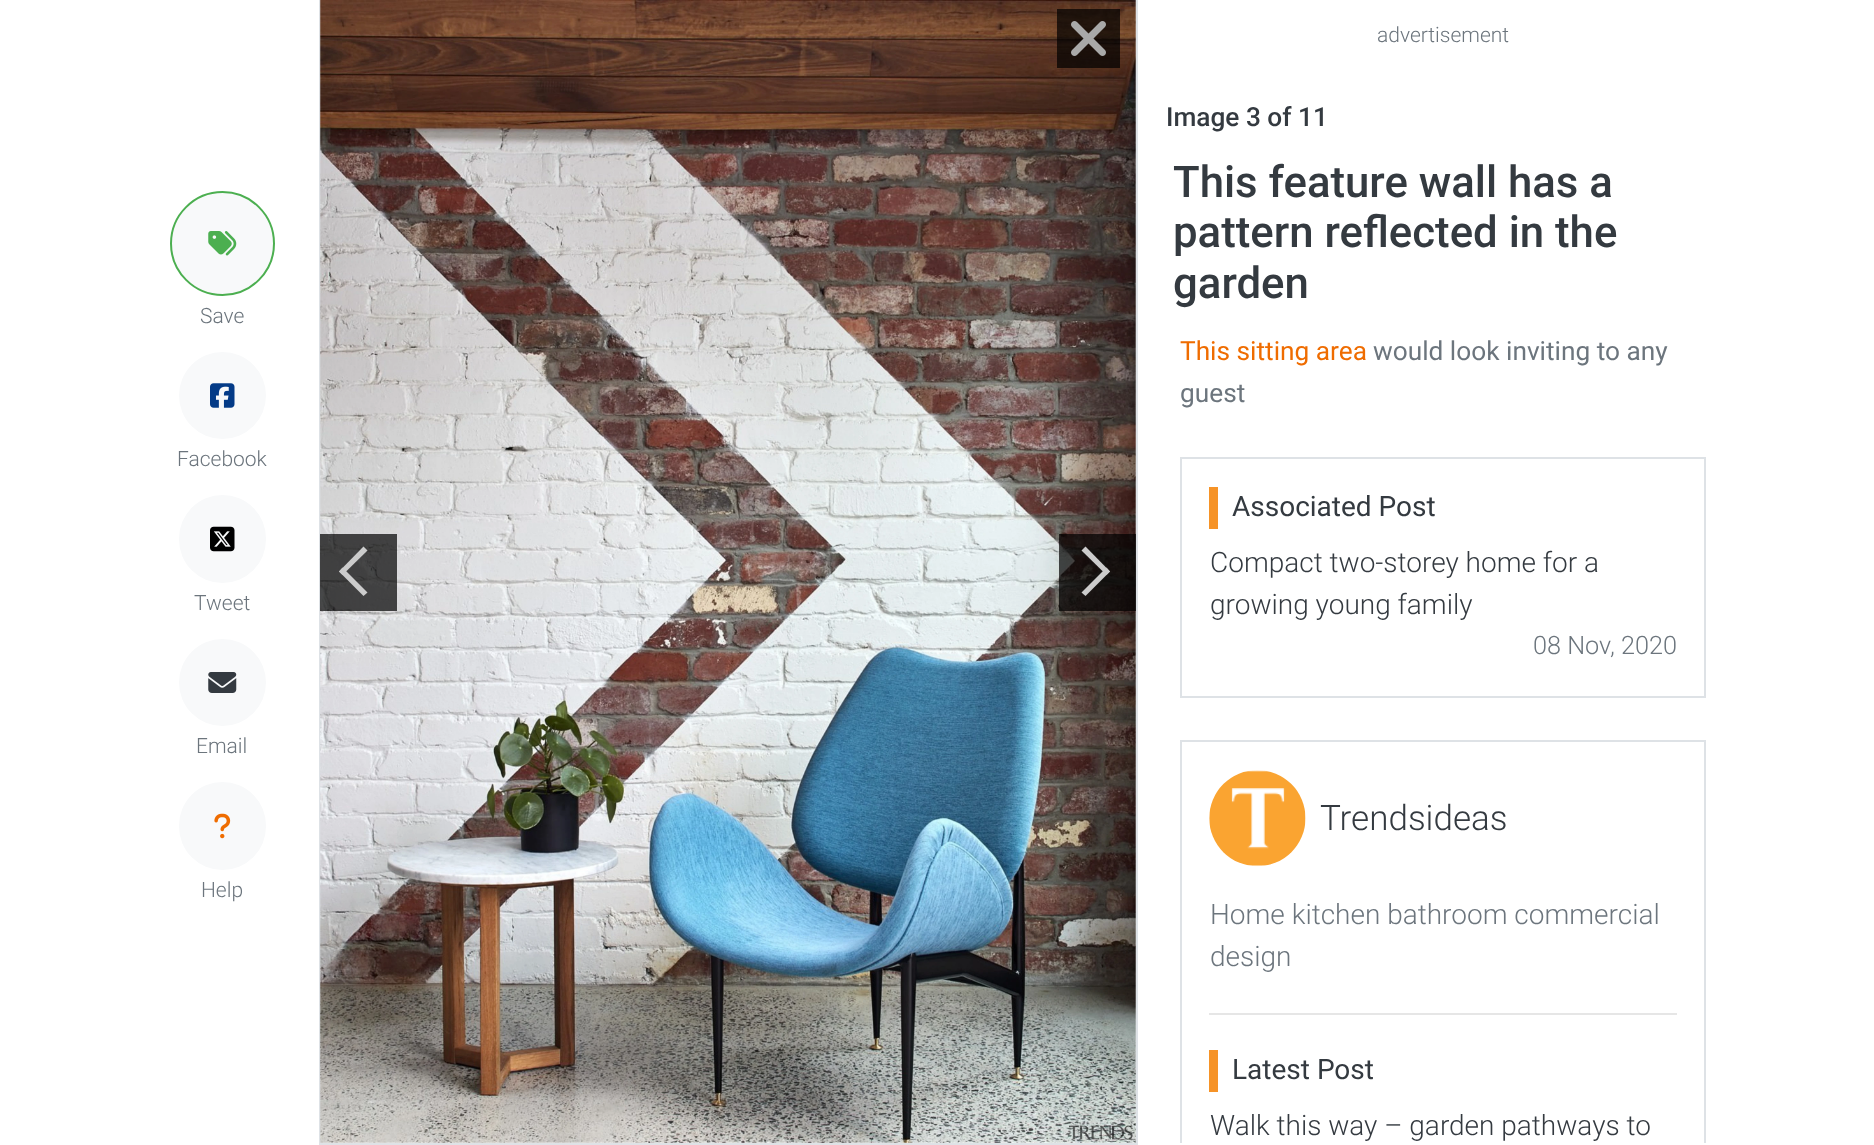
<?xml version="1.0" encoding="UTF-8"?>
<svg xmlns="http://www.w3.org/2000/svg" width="1874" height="1145">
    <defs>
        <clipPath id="clip1"><rect x="1139" y="0" width="608" height="1143"/></clipPath>
    </defs>
    <rect width="100%" height="100%" fill="#FFFFFF"/>
    <circle cx="222.5" cy="243.5" r="51.5" fill="#F8F9FA" stroke="#4CAF50" stroke-width="2"/>
    <image x="208" y="231" width="29" height="25" href="img_01.png"/>
    <text x="200" y="323" font-family="Roboto" font-size="21" font-weight="300" fill="#6C757D">Save</text>
    <circle cx="222.5" cy="395.5" r="43.5" fill="#F8F9FA"/>
    <image x="210" y="383" width="25" height="25" href="img_02.png"/>
    <text x="177" y="466" font-family="Roboto" font-size="21" font-weight="300" fill="#6C757D">Facebook</text>
    <rect x="179" y="495" width="87" height="88" rx="43.5" fill="#F8F9FA"/>
    <image x="210" y="526" width="25" height="26" href="img_03.png"/>
    <text x="194" y="610" font-family="Roboto" font-size="21" font-weight="300" fill="#6C757D">Tweet</text>
    <circle cx="222.5" cy="682.5" r="43.5" fill="#F8F9FA"/>
    <image x="208" y="672" width="29" height="21" href="img_04.png"/>
    <text x="196" y="753" font-family="Roboto" font-size="21" font-weight="300" fill="#6C757D">Email</text>
    <rect x="179" y="782" width="87" height="88" rx="43.5" fill="#F8F9FA"/>
    <image x="214" y="813" width="17" height="26" href="img_05.png"/>
    <text x="201" y="897" font-family="Roboto" font-size="21" font-weight="300" fill="#6C757D">Help</text>
    <rect x="320" y="-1" width="817" height="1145" fill="none" stroke="#DEE2E6" stroke-width="2"/>
    <image x="320" y="0" width="816" height="1143" href="img_06.png"/>
    <rect x="1057" y="9" width="63" height="59" fill="#000000" fill-opacity="0.7"/>
    <image x="1071" y="21" width="35" height="35" href="img_07.png"/>
    <rect x="320" y="534" width="77" height="77" fill="#000000" fill-opacity="0.7"/>
    <path d="M 339 571.5 L 363.5 546.5 L 367.5 550.5 L 342.5 575 Z" fill="#CCCCCC"/>
    <path d="M 339 571.5 L 342.5 567.5 L 367.5 592.5 L 363.5 596 Z" fill="#CCCCCC"/>
    <rect x="1059" y="534" width="77" height="77" fill="#000000" fill-opacity="0.7"/>
    <path d="M 1085.5 546.5 L 1110 571.5 L 1106.5 575 L 1081.5 550.5 Z" fill="#CCCCCC"/>
    <path d="M 1106.5 567.5 L 1110 571.5 L 1085.5 596 L 1081.5 592.5 Z" fill="#CCCCCC"/>
    <text x="1377" y="42" font-family="Roboto" font-size="21" font-weight="300" fill="#6C757D">advertisement</text>
    <text x="1166" y="126" font-family="Roboto" font-size="26.25" font-weight="500" fill="#343A40">Image 3 of 11</text>
    <text font-family="Roboto" font-size="43.75" font-weight="500" fill="#343A40">
        <tspan x="1173" y="197">This feature wall has a</tspan>
        <tspan x="1173" y="247">pattern reflected in the</tspan>
        <tspan x="1173" y="298">garden</tspan>
    </text>
    <text x="1180" y="360" font-family="Roboto" font-size="26.25" fill="#EF6C00">This sitting area</text>
    <text x="1373" y="360" font-family="Roboto" font-size="26.25" fill="#6C757D">would look inviting to any</text>
    <text x="1180" y="402" font-family="Roboto" font-size="26.25" fill="#6C757D">guest</text>
    <rect x="1181" y="458" width="524" height="239" fill="none" stroke="#DEE2E6" stroke-width="2"/>
    <rect x="1209" y="487" width="9" height="42" fill="#F69327"/>
    <text x="1232" y="516" font-family="Roboto" font-size="28" fill="#343A40">Associated Post</text>
    <text font-family="Roboto" font-size="28" font-weight="300" fill="#343A40">
        <tspan x="1210" y="572">Compact two-storey home for a</tspan>
        <tspan x="1210" y="614">growing young family</tspan>
    </text>
    <text x="1533" y="654" font-family="Roboto" font-size="25.25" font-weight="300" fill="#6C757D">08 Nov, 2020</text>
    <g clip-path="url(#clip1)">
        <rect x="1181" y="741" width="524" height="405" fill="none" stroke="#DEE2E6" stroke-width="2"/>
    </g>
    <image x="1209" y="770" width="97" height="97" href="img_08.png"/>
    <text x="1320" y="830" font-family="Roboto" font-size="35" font-weight="300" fill="#343A40">Trendsideas</text>
    <text font-family="Roboto" font-size="28" font-weight="300" fill="#6C757D">
        <tspan x="1210" y="924">Home kitchen bathroom commercial</tspan>
        <tspan x="1210" y="966">design</tspan>
    </text>
    <rect x="1209" y="1013" width="468" height="2" fill="#E6E6E6"/>
    <rect x="1209" y="1050" width="9" height="42" fill="#F69327"/>
    <text x="1232" y="1079" font-family="Roboto" font-size="28" fill="#343A40">Latest Post</text>
    <text x="1210" y="1135" font-family="Roboto" font-size="28" font-weight="300" fill="#343A40">Walk this way – garden pathways to</text>
</svg>
